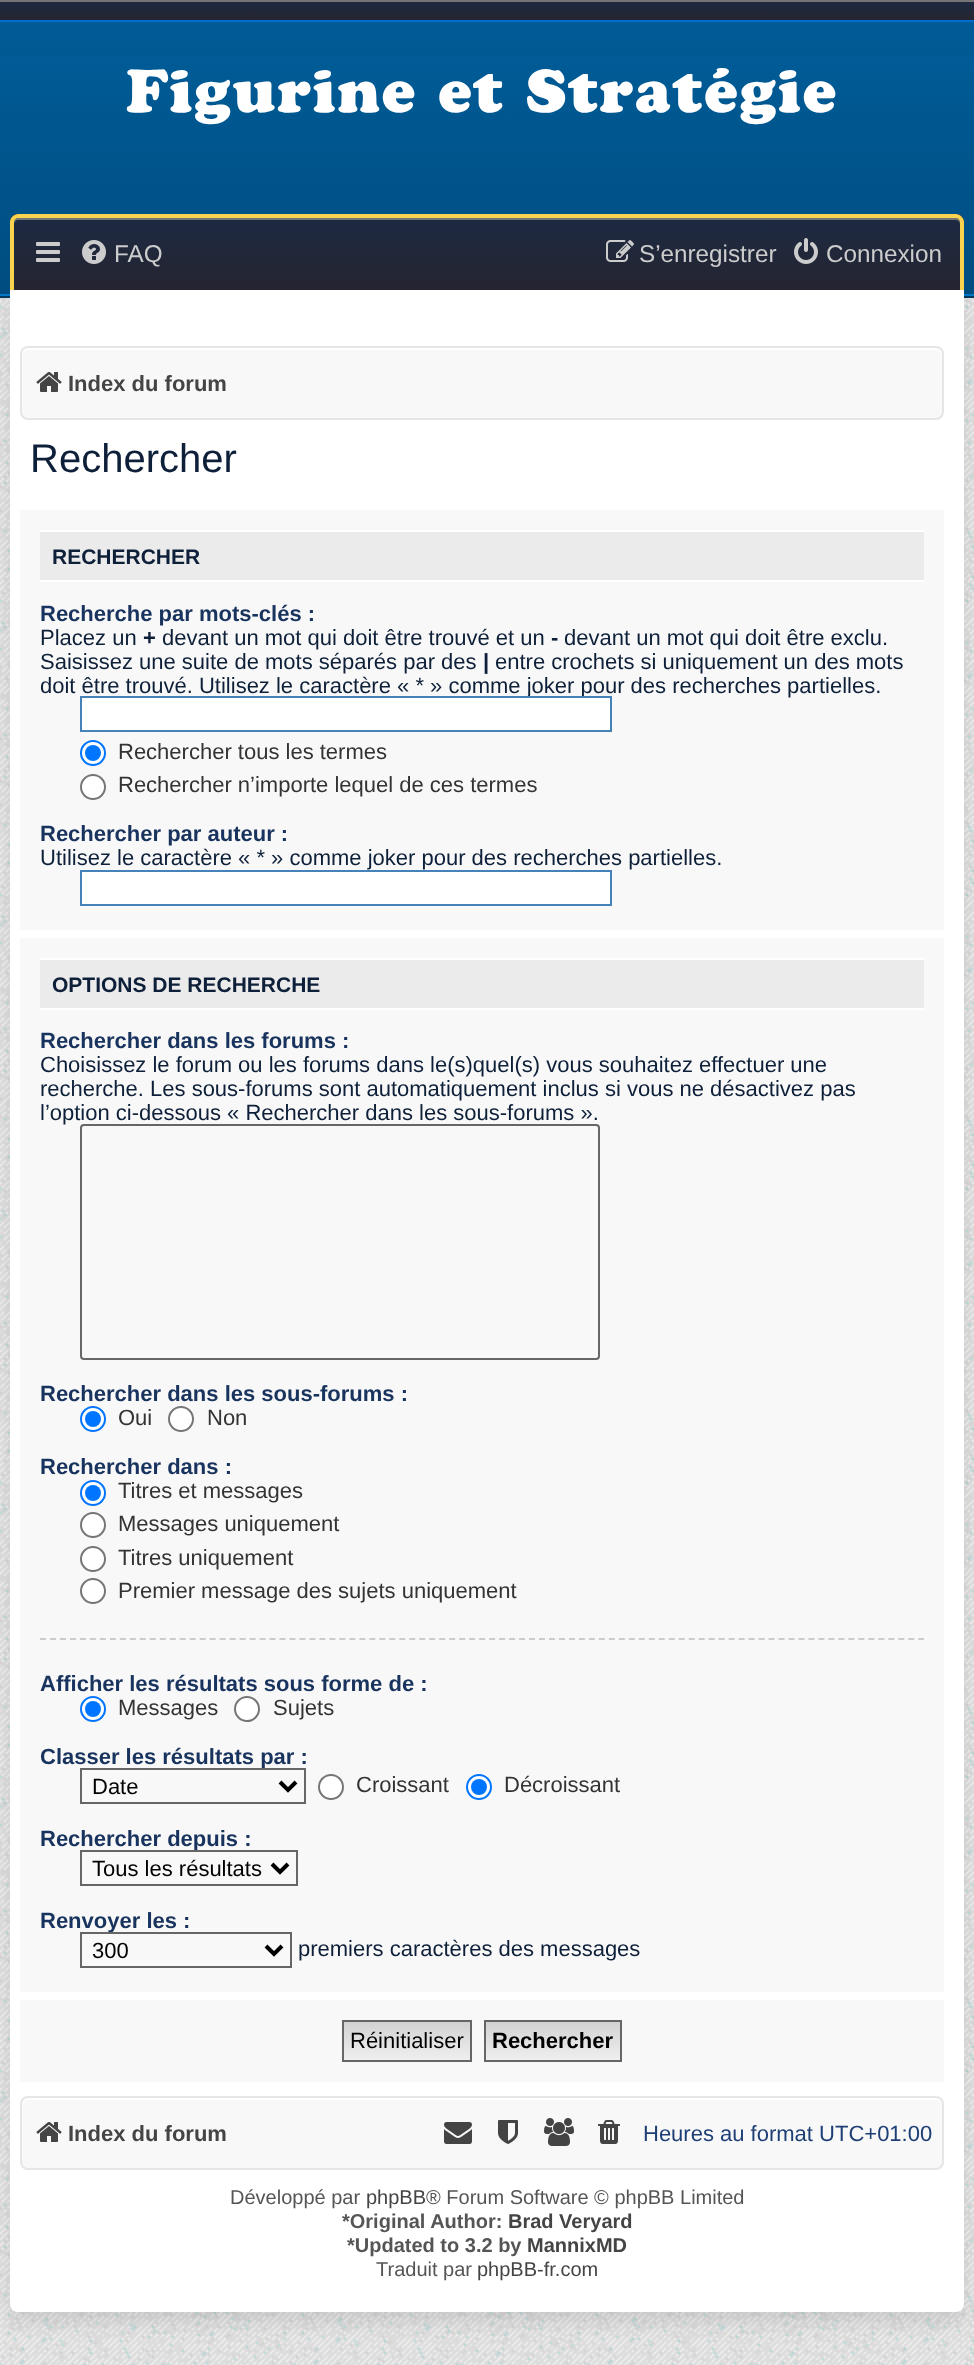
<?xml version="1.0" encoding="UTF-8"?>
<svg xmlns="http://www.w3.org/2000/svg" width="974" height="2365">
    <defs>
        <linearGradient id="g1" gradientUnits="userSpaceOnUse" x1="487" y1="0" x2="487" y2="20"><stop offset="0" stop-color="#1D2A43"/><stop offset="1" stop-color="#252530"/></linearGradient>
        <linearGradient id="g2" gradientUnits="userSpaceOnUse" x1="487" y1="22" x2="487" y2="286"><stop offset="0" stop-color="#005B96"/><stop offset="1" stop-color="#004D80"/></linearGradient>
        <linearGradient id="g3" gradientUnits="userSpaceOnUse" x1="482" y1="56" x2="482" y2="296"><stop offset="0" stop-color="#005B96"/><stop offset="1" stop-color="#004D80"/></linearGradient>
        <clipPath id="clip1"><path d="M 18 214 H 956 C 960.5 214 964 217.5 964 222 V 290 H 10 V 222 C 10 217.5 13.5 214 18 214 Z"/></clipPath>
        <linearGradient id="g4" gradientUnits="userSpaceOnUse" x1="487" y1="146" x2="487" y2="218"><stop offset="0" stop-color="#1D2A43"/><stop offset="1" stop-color="#252530"/></linearGradient>
        <linearGradient id="g5" gradientUnits="userSpaceOnUse" x1="487" y1="218" x2="487" y2="290"><stop offset="0" stop-color="#1D2A43"/><stop offset="1" stop-color="#252530"/></linearGradient>
        <filter id="blur1" x="-50%" y="-200%" width="200%" height="500%"><feGaussianBlur stdDeviation="9"/></filter>
        <linearGradient id="g6" gradientUnits="userSpaceOnUse" x1="407" y1="2022" x2="407" y2="2060"><stop offset="0" stop-color="#D2D2D2"/><stop offset="1" stop-color="#EFEFEF"/></linearGradient>
        <linearGradient id="g7" gradientUnits="userSpaceOnUse" x1="553" y1="2022" x2="553" y2="2060"><stop offset="0" stop-color="#D2D2D2"/><stop offset="1" stop-color="#EFEFEF"/></linearGradient>
    </defs>
    <rect width="100%" height="100%" fill="#FFFFFF"/>
    <image x="0" y="2334" width="974" height="31" href="img_01.png"/>
    <image x="0" y="298" width="974" height="2036" href="img_02.png"/>
    <rect x="0" y="2" width="974" height="18" fill="url(#g1)"/>
    <rect x="0" y="0" width="974" height="2" fill="#757575"/>
    <rect x="0" y="20" width="974" height="2" fill="#006DD3"/>
    <rect x="0" y="22" width="974" height="34" fill="url(#g2)"/>
    <rect x="0" y="56" width="974" height="238" fill="url(#g3)"/>
    <rect x="0" y="294" width="974" height="2" fill="#0078C7"/>
    <rect x="0" y="296" width="974" height="2" fill="#00395F"/>
    <text x="126" y="112" font-family="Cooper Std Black" font-size="60" font-weight="900" letter-spacing="2" fill="#FFFFFF">Figurine et Stratégie</text>
    <g clip-path="url(#clip1)">
        <rect x="10" y="214" width="954" height="4" fill="url(#g4)"/>
        <rect x="10" y="218" width="954" height="72" fill="url(#g5)"/>
    </g>
    <path d="M 18 220 H 956 C 958 220 960 222 960 224 V 222 C 960 220 958 218 956 218 H 18 C 16 218 14 220 14 222 V 224 C 14 222 16 220 18 220 Z" fill="#757575"/>
    <path d="M 18 214 H 956 C 960 214 964 218 964 222 V 290 H 10 V 222 C 10 218 14 214 18 214 Z M 18 218 H 956 C 958 218 960 220 960 222 V 290 H 14 V 222 C 14 220 16 218 18 218 Z" fill="#FAD34E" fill-rule="evenodd"/>
    <image x="36" y="242" width="24" height="20" href="img_03.png"/>
    <image x="82" y="240" width="24" height="24" href="img_04.png"/>
    <text x="114" y="262" font-family="Liberation Sans" font-size="24.25" fill="#CCCCCC">FAQ</text>
    <image x="606" y="240" width="28" height="22" href="img_05.png"/>
    <text x="639" y="262" font-family="Liberation Sans" font-size="24.25" fill="#CCCCCC">S’enregistrer</text>
    <image x="794" y="238" width="24" height="26" href="img_06.png"/>
    <text x="826" y="262" font-family="Liberation Sans" font-size="24.25" fill="#CCCCCC">Connexion</text>
    <rect x="10" y="300" width="954" height="2022" rx="8" fill="#000000" fill-opacity="0.1" filter="url(#blur1)"/>
    <path d="M 10 290 H 964 V 2304 C 964 2308.5 960.5 2312 956 2312 H 18 C 13.5 2312 10 2308.5 10 2304 Z" fill="#FFFFFF"/>
    <rect x="20" y="346" width="924" height="74" rx="8" fill="#F8F8F8"/>
    <path d="M 28 350 H 936 C 939 350 942 353 942 356 V 354 C 942 351 939 348 936 348 H 28 C 25 348 22 351 22 354 V 356 C 22 353 25 350 28 350 Z" fill="#FFFFFF"/>
    <rect x="21" y="347" width="922" height="72" rx="7" fill="none" stroke="#E6E6E6" stroke-width="2"/>
    <image x="36" y="372" width="26" height="20" href="img_07.png"/>
    <text x="68" y="391" font-family="Liberation Sans" font-size="22" font-weight="700" fill="#444444">Index du forum</text>
    <text x="30" y="472" font-family="Liberation Sans" font-size="40" fill="#0E2039">Rechercher</text>
    <rect x="20" y="510" width="924" height="420" fill="#F8F8F8"/>
    <rect x="40" y="532" width="884" height="48" fill="#EBEBEB"/>
    <rect x="40" y="530" width="884" height="2" fill="#FFFFFF"/>
    <rect x="40" y="580" width="884" height="2" fill="#FFFFFF"/>
    <text x="52" y="564" font-family="Liberation Sans" font-size="21" font-weight="700" fill="#0E2039">RECHERCHER</text>
    <text x="40" y="621" font-family="Liberation Sans" font-size="22" font-weight="700" fill="#18335D">Recherche par mots-clés :</text>
    <text x="40" y="645" font-family="Liberation Sans" font-size="22" fill="#0E2039">Placez un</text>
    <text x="143" y="645" font-family="Liberation Sans" font-size="22" font-weight="700" fill="#0E2039">+</text>
    <text x="162" y="645" font-family="Liberation Sans" font-size="22" fill="#0E2039">devant un mot qui doit être trouvé et un</text>
    <text x="551" y="645" font-family="Liberation Sans" font-size="22" font-weight="700" fill="#0E2039">-</text>
    <text x="564" y="645" font-family="Liberation Sans" font-size="22" fill="#0E2039">devant un mot qui doit être exclu.</text>
    <text x="40" y="669" font-family="Liberation Sans" font-size="22" fill="#0E2039">Saisissez une suite de mots séparés par des</text>
    <text x="483" y="669" font-family="Liberation Sans" font-size="22" font-weight="700" fill="#0E2039">|</text>
    <text x="495" y="669" font-family="Liberation Sans" font-size="22" fill="#0E2039">entre crochets si uniquement un des mots</text>
    <text x="40" y="693" font-family="Liberation Sans" font-size="22" fill="#0E2039">doit être trouvé. Utilisez le caractère « * » comme joker pour des recherches partielles.</text>
    <rect x="81" y="697" width="530" height="34" fill="#FFFFFF" stroke="#4682BA" stroke-width="2"/>
    <circle cx="93" cy="753" r="12" fill="#FFFFFF" stroke="#0075FF" stroke-width="2"/>
    <circle cx="93" cy="753" r="8" fill="#0075FF"/>
    <text x="118" y="759" font-family="Liberation Sans" font-size="22" fill="#333333">Rechercher tous les termes</text>
    <circle cx="93" cy="787" r="12" fill="#FFFFFF" stroke="#767676" stroke-width="2"/>
    <text x="118" y="792" font-family="Liberation Sans" font-size="22" fill="#333333">Rechercher n’importe lequel de ces termes</text>
    <text x="40" y="841" font-family="Liberation Sans" font-size="22" font-weight="700" fill="#18335D">Rechercher par auteur :</text>
    <text x="40" y="865" font-family="Liberation Sans" font-size="22" fill="#0E2039">Utilisez le caractère « * » comme joker pour des recherches partielles.</text>
    <rect x="81" y="871" width="530" height="34" fill="#FFFFFF" stroke="#4682BA" stroke-width="2"/>
    <rect x="20" y="938" width="924" height="1054" fill="#F8F8F8"/>
    <rect x="40" y="960" width="884" height="48" fill="#EBEBEB"/>
    <rect x="40" y="958" width="884" height="2" fill="#FFFFFF"/>
    <rect x="40" y="1008" width="884" height="2" fill="#FFFFFF"/>
    <text x="52" y="992" font-family="Liberation Sans" font-size="21" font-weight="700" fill="#0E2039">OPTIONS DE RECHERCHE</text>
    <text x="40" y="1048" font-family="Liberation Sans" font-size="22" font-weight="700" fill="#18335D">Rechercher dans les forums :</text>
    <text font-family="Liberation Sans" font-size="22" fill="#0E2039">
        <tspan x="40" y="1072">Choisissez le forum ou les forums dans le(s)quel(s) vous souhaitez effectuer une</tspan>
        <tspan x="40" y="1096">recherche. Les sous-forums sont automatiquement inclus si vous ne désactivez pas</tspan>
        <tspan x="40" y="1120">l’option ci-dessous « Rechercher dans les sous-forums ».</tspan>
    </text>
    <rect x="81" y="1125" width="518" height="234" rx="3" fill="none" stroke="#666666" stroke-width="2"/>
    <text x="40" y="1401" font-family="Liberation Sans" font-size="22" font-weight="700" fill="#18335D">Rechercher dans les sous-forums :</text>
    <circle cx="93" cy="1419" r="12" fill="#FFFFFF" stroke="#0075FF" stroke-width="2"/>
    <circle cx="93" cy="1419" r="8" fill="#0075FF"/>
    <text x="118" y="1425" font-family="Liberation Sans" font-size="22" fill="#333333">Oui</text>
    <circle cx="181" cy="1419" r="12" fill="#FFFFFF" stroke="#767676" stroke-width="2"/>
    <text x="207" y="1425" font-family="Liberation Sans" font-size="22" fill="#333333">Non</text>
    <text x="40" y="1474" font-family="Liberation Sans" font-size="22" font-weight="700" fill="#18335D">Rechercher dans :</text>
    <circle cx="93" cy="1493" r="12" fill="#FFFFFF" stroke="#0075FF" stroke-width="2"/>
    <circle cx="93" cy="1493" r="8" fill="#0075FF"/>
    <text x="118" y="1498" font-family="Liberation Sans" font-size="22" fill="#333333">Titres et messages</text>
    <circle cx="93" cy="1525" r="12" fill="#FFFFFF" stroke="#767676" stroke-width="2"/>
    <text x="118" y="1531" font-family="Liberation Sans" font-size="22" fill="#333333">Messages uniquement</text>
    <circle cx="93" cy="1559" r="12" fill="#FFFFFF" stroke="#767676" stroke-width="2"/>
    <text x="118" y="1565" font-family="Liberation Sans" font-size="22" fill="#333333">Titres uniquement</text>
    <circle cx="93" cy="1591" r="12" fill="#FFFFFF" stroke="#767676" stroke-width="2"/>
    <text x="118" y="1598" font-family="Liberation Sans" font-size="22" fill="#333333">Premier message des sujets uniquement</text>
    <path d="M 40 1639 H 924" fill="none" stroke="#CCCCCC" stroke-width="2" stroke-dasharray="6 3.98"/>
    <text x="40" y="1691" font-family="Liberation Sans" font-size="22" font-weight="700" fill="#18335D">Afficher les résultats sous forme de :</text>
    <circle cx="93" cy="1709" r="12" fill="#FFFFFF" stroke="#0075FF" stroke-width="2"/>
    <circle cx="93" cy="1709" r="8" fill="#0075FF"/>
    <text x="118" y="1715" font-family="Liberation Sans" font-size="22" fill="#333333">Messages</text>
    <circle cx="247" cy="1709" r="12" fill="#FFFFFF" stroke="#767676" stroke-width="2"/>
    <text x="273" y="1715" font-family="Liberation Sans" font-size="22" fill="#333333">Sujets</text>
    <text x="40" y="1764" font-family="Liberation Sans" font-size="22" font-weight="700" fill="#18335D">Classer les résultats par :</text>
    <rect x="81" y="1769" width="224" height="34" fill="none" stroke="#666666" stroke-width="2"/>
    <path d="M 280 1782 L 288 1790 L 296 1782" fill="none" stroke="#000000" stroke-width="4"/>
    <text x="92" y="1794" font-family="Liberation Sans" font-size="22" fill="#000000">Date</text>
    <circle cx="331" cy="1787" r="12" fill="#FFFFFF" stroke="#767676" stroke-width="2"/>
    <text x="356" y="1792" font-family="Liberation Sans" font-size="22" fill="#333333">Croissant</text>
    <circle cx="479" cy="1787" r="12" fill="#FFFFFF" stroke="#0075FF" stroke-width="2"/>
    <circle cx="479" cy="1787" r="8" fill="#0075FF"/>
    <text x="504" y="1792" font-family="Liberation Sans" font-size="22" fill="#333333">Décroissant</text>
    <text x="40" y="1846" font-family="Liberation Sans" font-size="22" font-weight="700" fill="#18335D">Rechercher depuis :</text>
    <rect x="81" y="1851" width="216" height="34" fill="none" stroke="#666666" stroke-width="2"/>
    <path d="M 272 1864 L 280 1872 L 288 1864" fill="none" stroke="#000000" stroke-width="4"/>
    <text x="92" y="1876" font-family="Liberation Sans" font-size="22" fill="#000000">Tous les résultats</text>
    <text x="40" y="1928" font-family="Liberation Sans" font-size="22" font-weight="700" fill="#18335D">Renvoyer les :</text>
    <rect x="81" y="1933" width="210" height="34" fill="none" stroke="#666666" stroke-width="2"/>
    <path d="M 266 1946 L 274 1954 L 282 1946" fill="none" stroke="#000000" stroke-width="4"/>
    <text x="92" y="1958" font-family="Liberation Sans" font-size="22" fill="#000000">300</text>
    <text x="298" y="1956" font-family="Liberation Sans" font-size="22" fill="#0E2039">premiers caractères des messages</text>
    <rect x="20" y="2000" width="924" height="82" fill="#F8F8F8"/>
    <rect x="344" y="2022" width="126" height="38" fill="url(#g6)"/>
    <rect x="343" y="2021" width="128" height="40" fill="none" stroke="#666666" stroke-width="2"/>
    <text x="350" y="2048" font-family="Liberation Sans" font-size="22" fill="#000000">Réinitialiser</text>
    <rect x="486" y="2022" width="134" height="38" fill="url(#g7)"/>
    <rect x="485" y="2021" width="136" height="40" fill="none" stroke="#666666" stroke-width="2"/>
    <text x="492" y="2048" font-family="Liberation Sans" font-size="22" font-weight="700" fill="#000000">Rechercher</text>
    <rect x="20" y="2096" width="924" height="74" rx="8" fill="#F8F8F8"/>
    <path d="M 28 2100 H 936 C 939 2100 942 2103 942 2106 V 2104 C 942 2101 939 2098 936 2098 H 28 C 25 2098 22 2101 22 2104 V 2106 C 22 2103 25 2100 28 2100 Z" fill="#FFFFFF"/>
    <rect x="21" y="2097" width="922" height="72" rx="7" fill="none" stroke="#E6E6E6" stroke-width="2"/>
    <image x="36" y="2122" width="26" height="20" href="img_07.png"/>
    <text x="68" y="2141" font-family="Liberation Sans" font-size="22" font-weight="700" fill="#444444">Index du forum</text>
    <image x="444" y="2122" width="28" height="22" href="img_08.png"/>
    <image x="498" y="2120" width="20" height="24" href="img_09.png"/>
    <image x="544" y="2118" width="30" height="28" href="img_10.png"/>
    <image x="598" y="2120" width="22" height="24" href="img_11.png"/>
    <text x="643" y="2141" font-family="Liberation Sans" font-size="22" fill="#1E3F75">Heures au format UTC+01:00</text>
    <text x="230" y="2204" font-family="Liberation Sans" font-size="20" fill="#555555">Développé par</text>
    <text x="366" y="2204" font-family="Liberation Sans" font-size="20" fill="#444444">phpBB</text>
    <text x="426" y="2204" font-family="Liberation Sans" font-size="20" fill="#555555">® Forum Software © phpBB Limited</text>
    <text x="342" y="2228" font-family="Liberation Sans" font-size="20" font-weight="700" fill="#555555">*Original Author:</text>
    <text x="508" y="2228" font-family="Liberation Sans" font-size="20" font-weight="700" fill="#444444">Brad Veryard</text>
    <text x="347" y="2252" font-family="Liberation Sans" font-size="20" font-weight="700" fill="#555555">*Updated to 3.2 by</text>
    <text x="527" y="2252" font-family="Liberation Sans" font-size="20" font-weight="700" fill="#444444">MannixMD</text>
    <text x="376" y="2276" font-family="Liberation Sans" font-size="20" fill="#555555">Traduit par</text>
    <text x="477" y="2276" font-family="Liberation Sans" font-size="20" fill="#444444">phpBB-fr.com</text>
</svg>
